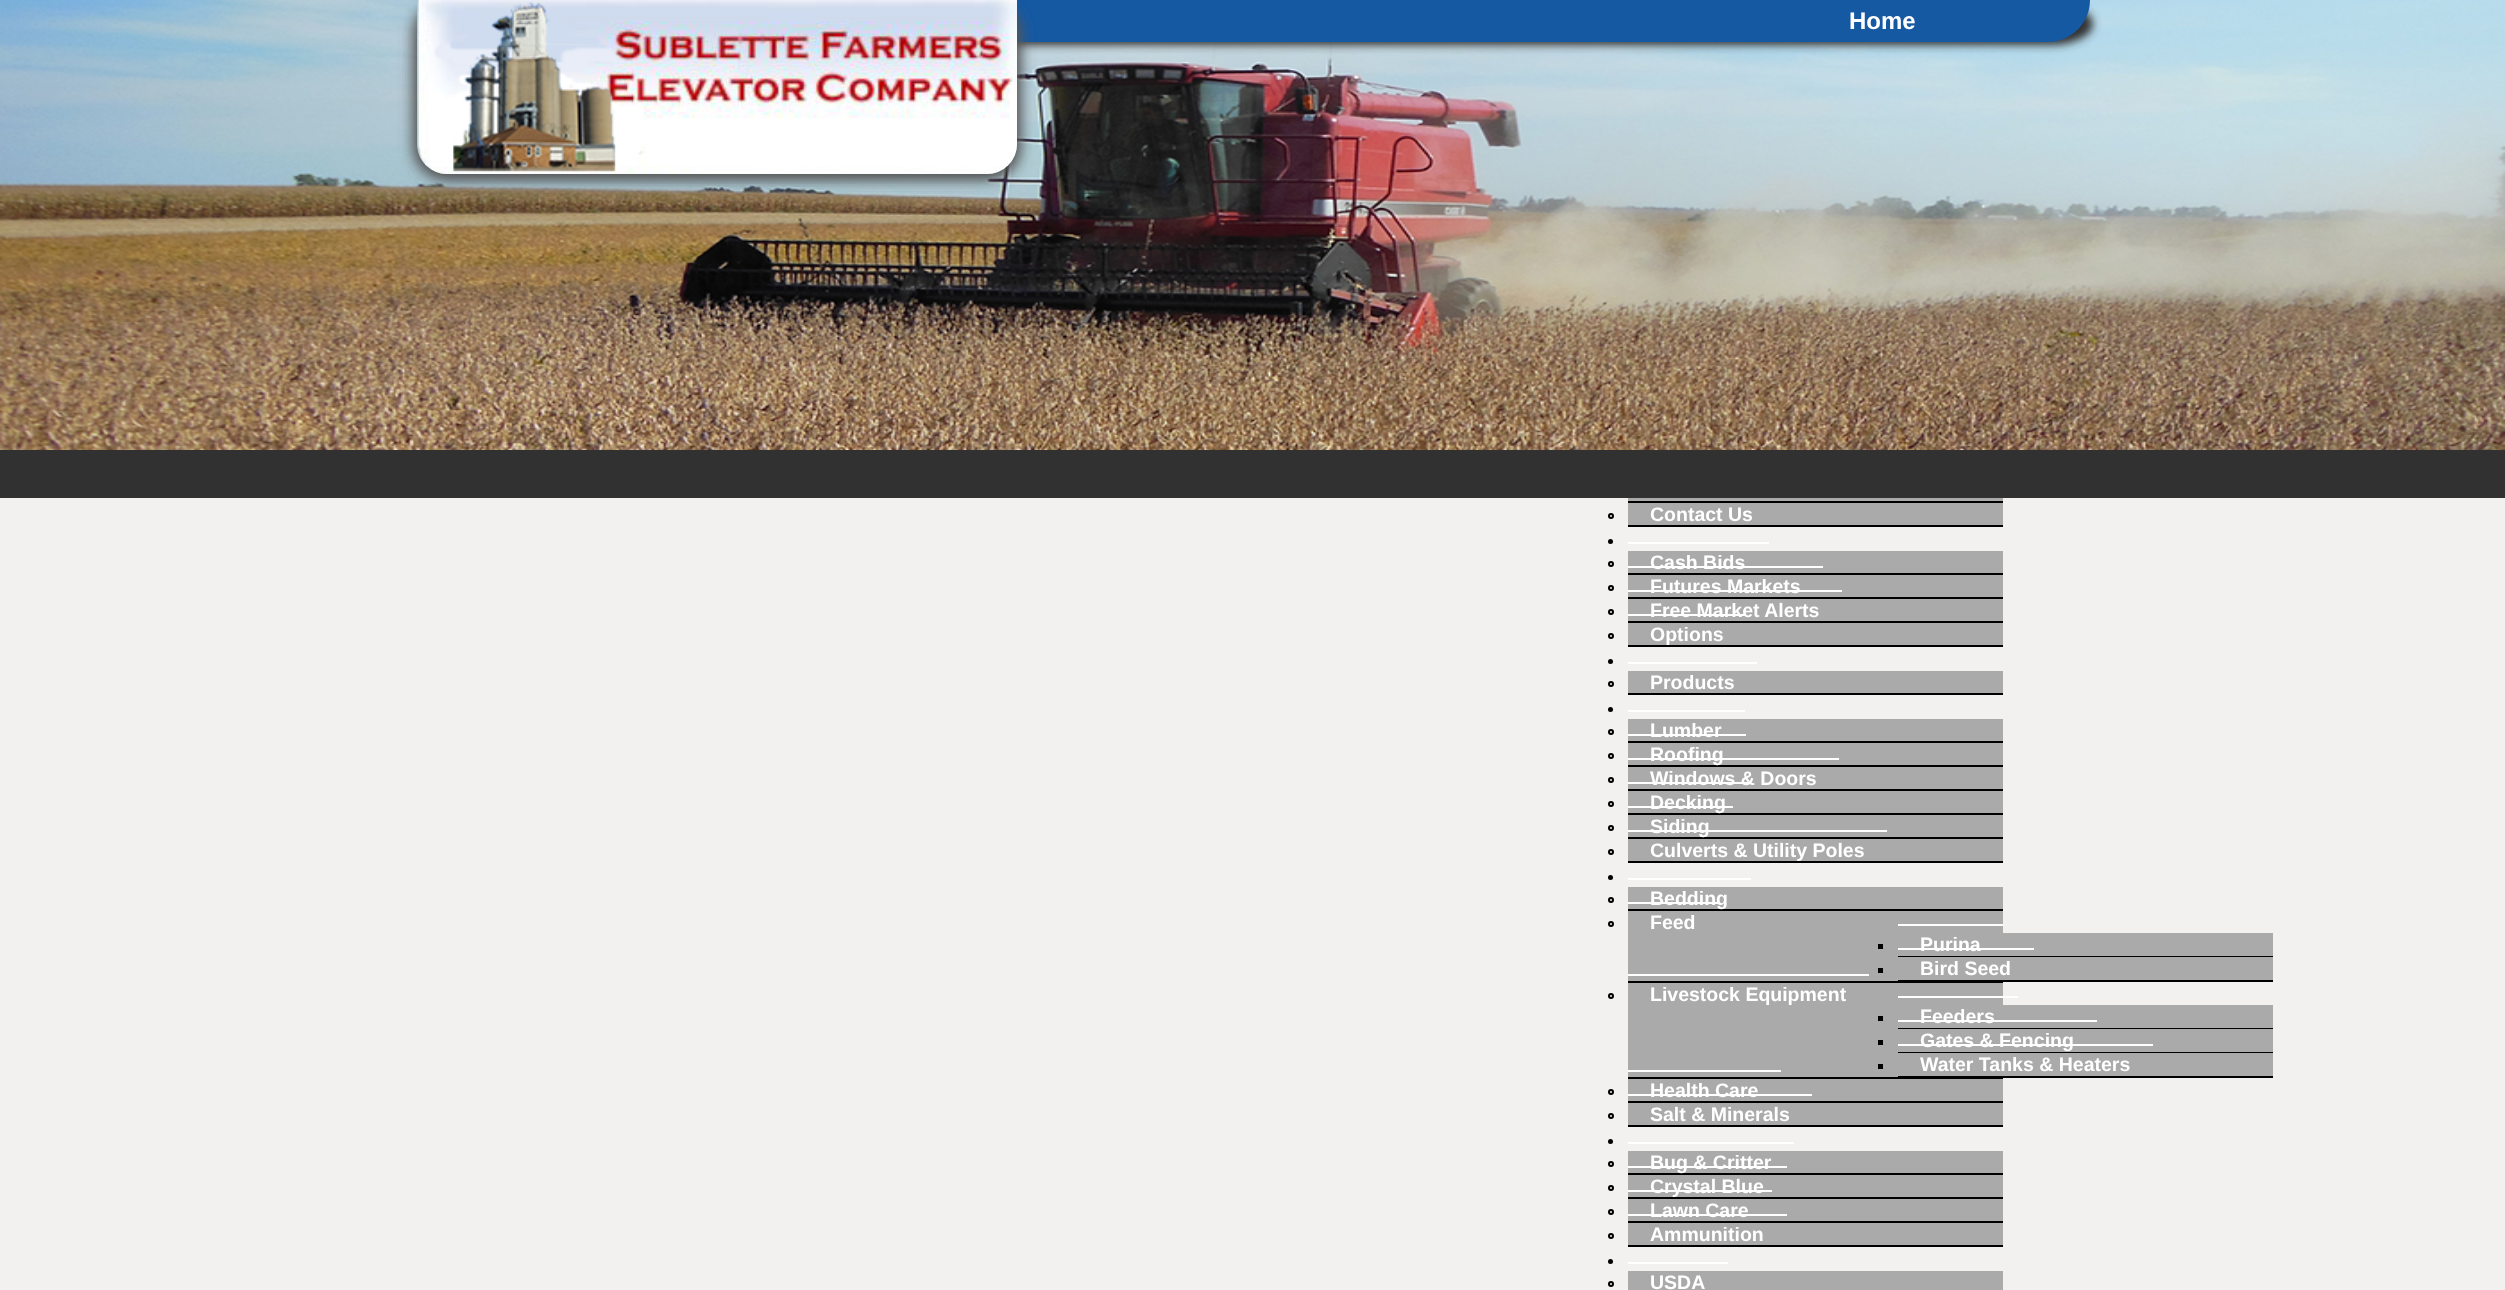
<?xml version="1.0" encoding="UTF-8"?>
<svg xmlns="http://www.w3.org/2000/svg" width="2505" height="1290">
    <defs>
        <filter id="blur1" x="-50%" y="-200%" width="200%" height="500%"><feGaussianBlur stdDeviation="4"/></filter>
        <clipPath id="clip1"><path d="M 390 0 H 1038 V 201 H 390 Z M 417 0 H 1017 V 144 C 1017 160.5 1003.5 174 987 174 H 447 C 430.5 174 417 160.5 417 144 Z" clip-rule="evenodd"/></clipPath>
        <filter id="blur2" x="-50%" y="-200%" width="200%" height="500%"><feGaussianBlur stdDeviation="7.5"/></filter>
        <clipPath id="clip2"><path d="M 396 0 H 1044 V 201 H 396 Z M 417 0 H 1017 V 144 C 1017 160.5 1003.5 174 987 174 H 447 C 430.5 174 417 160.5 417 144 Z" clip-rule="evenodd"/></clipPath>
    </defs>
    <rect width="100%" height="100%" fill="#F2F1EF"/>
    <rect x="0" y="450" width="2505" height="48" fill="#313131"/>
    <image x="0" y="0" width="2505" height="450" href="img_01.png"/>
    <rect x="893" y="3" width="1200" height="42" rx="42" fill="#333333" filter="url(#blur1)"/>
    <path d="M 890 0 H 2090 C 2090 23 2071 42 2048 42 H 890 Z" fill="#1559A3"/>
    <g clip-path="url(#clip1)">
        <rect x="414" y="3" width="600" height="174" rx="30" fill="#555555" filter="url(#blur2)"/>
    </g>
    <g clip-path="url(#clip2)">
        <rect x="420" y="3" width="600" height="174" rx="30" fill="#555555" filter="url(#blur2)"/>
    </g>
    <image x="418" y="0" width="599" height="174" href="img_02.png"/>
    <text x="1849" y="29" font-family="Liberation Sans" font-size="24" font-weight="700" fill="#FFFFFF">Home</text>
    <rect x="1628" y="498" width="375" height="3" fill="#AAAAAA"/>
    <rect x="1628" y="501" width="375" height="2" fill="#000000"/>
    <rect x="1628" y="503" width="375" height="22" fill="#AAAAAA"/>
    <rect x="1628" y="525" width="375" height="2" fill="#000000"/>
    <circle cx="1611" cy="516" r="2" fill="none" stroke="#000000" stroke-width="2"/>
    <text x="1650" y="521" font-family="Liberation Sans" font-size="19.5" font-weight="700" fill="#FFFFFF">Contact Us</text>
    <circle cx="1610.5" cy="541.5" r="2.5" fill="#000000"/>
    <rect x="1628" y="551" width="375" height="22" fill="#AAAAAA"/>
    <rect x="1628" y="573" width="375" height="2" fill="#000000"/>
    <circle cx="1611" cy="564" r="2" fill="none" stroke="#000000" stroke-width="2"/>
    <text x="1650" y="569" font-family="Liberation Sans" font-size="19.5" font-weight="700" fill="#FFFFFF">Cash Bids</text>
    <rect x="1628" y="542" width="141" height="2" fill="#FFFFFF"/>
    <rect x="1628" y="575" width="375" height="22" fill="#AAAAAA"/>
    <rect x="1628" y="597" width="375" height="2" fill="#000000"/>
    <circle cx="1611" cy="588" r="2" fill="none" stroke="#000000" stroke-width="2"/>
    <text x="1650" y="593" font-family="Liberation Sans" font-size="19.5" font-weight="700" fill="#FFFFFF">Futures Markets</text>
    <rect x="1628" y="566" width="195" height="2" fill="#FFFFFF"/>
    <rect x="1628" y="599" width="375" height="22" fill="#AAAAAA"/>
    <rect x="1628" y="621" width="375" height="2" fill="#000000"/>
    <circle cx="1611" cy="612" r="2" fill="none" stroke="#000000" stroke-width="2"/>
    <text x="1650" y="617" font-family="Liberation Sans" font-size="19.5" font-weight="700" fill="#FFFFFF">Free Market Alerts</text>
    <rect x="1628" y="590" width="214" height="2" fill="#FFFFFF"/>
    <rect x="1628" y="623" width="375" height="22" fill="#AAAAAA"/>
    <rect x="1628" y="645" width="375" height="2" fill="#000000"/>
    <circle cx="1611" cy="636" r="2" fill="none" stroke="#000000" stroke-width="2"/>
    <text x="1650" y="641" font-family="Liberation Sans" font-size="19.5" font-weight="700" fill="#FFFFFF">Options</text>
    <rect x="1628" y="614" width="118" height="2" fill="#FFFFFF"/>
    <circle cx="1610.5" cy="661.5" r="2.5" fill="#000000"/>
    <rect x="1628" y="671" width="375" height="22" fill="#AAAAAA"/>
    <rect x="1628" y="693" width="375" height="2" fill="#000000"/>
    <circle cx="1611" cy="684" r="2" fill="none" stroke="#000000" stroke-width="2"/>
    <text x="1650" y="689" font-family="Liberation Sans" font-size="19.5" font-weight="700" fill="#FFFFFF">Products</text>
    <rect x="1628" y="662" width="129" height="2" fill="#FFFFFF"/>
    <circle cx="1610.5" cy="709.5" r="2.5" fill="#000000"/>
    <rect x="1628" y="719" width="375" height="22" fill="#AAAAAA"/>
    <rect x="1628" y="741" width="375" height="2" fill="#000000"/>
    <circle cx="1611" cy="732" r="2" fill="none" stroke="#000000" stroke-width="2"/>
    <text x="1650" y="737" font-family="Liberation Sans" font-size="19.5" font-weight="700" fill="#FFFFFF">Lumber</text>
    <rect x="1628" y="710" width="117" height="2" fill="#FFFFFF"/>
    <rect x="1628" y="743" width="375" height="22" fill="#AAAAAA"/>
    <rect x="1628" y="765" width="375" height="2" fill="#000000"/>
    <circle cx="1611" cy="756" r="2" fill="none" stroke="#000000" stroke-width="2"/>
    <text x="1650" y="761" font-family="Liberation Sans" font-size="19.5" font-weight="700" fill="#FFFFFF">Roofing</text>
    <rect x="1628" y="734" width="118" height="2" fill="#FFFFFF"/>
    <rect x="1628" y="767" width="375" height="22" fill="#AAAAAA"/>
    <rect x="1628" y="789" width="375" height="2" fill="#000000"/>
    <circle cx="1611" cy="780" r="2" fill="none" stroke="#000000" stroke-width="2"/>
    <text x="1650" y="785" font-family="Liberation Sans" font-size="19.5" font-weight="700" fill="#FFFFFF">Windows &amp; Doors</text>
    <rect x="1628" y="758" width="211" height="2" fill="#FFFFFF"/>
    <rect x="1628" y="791" width="375" height="22" fill="#AAAAAA"/>
    <rect x="1628" y="813" width="375" height="2" fill="#000000"/>
    <circle cx="1611" cy="804" r="2" fill="none" stroke="#000000" stroke-width="2"/>
    <text x="1650" y="809" font-family="Liberation Sans" font-size="19.5" font-weight="700" fill="#FFFFFF">Decking</text>
    <rect x="1628" y="782" width="121" height="2" fill="#FFFFFF"/>
    <rect x="1628" y="815" width="375" height="22" fill="#AAAAAA"/>
    <rect x="1628" y="837" width="375" height="2" fill="#000000"/>
    <circle cx="1611" cy="828" r="2" fill="none" stroke="#000000" stroke-width="2"/>
    <text x="1650" y="833" font-family="Liberation Sans" font-size="19.5" font-weight="700" fill="#FFFFFF">Siding</text>
    <rect x="1628" y="806" width="105" height="2" fill="#FFFFFF"/>
    <rect x="1628" y="839" width="375" height="22" fill="#AAAAAA"/>
    <rect x="1628" y="861" width="375" height="2" fill="#000000"/>
    <circle cx="1611" cy="852" r="2" fill="none" stroke="#000000" stroke-width="2"/>
    <text x="1650" y="857" font-family="Liberation Sans" font-size="19.5" font-weight="700" fill="#FFFFFF">Culverts &amp; Utility Poles</text>
    <rect x="1628" y="830" width="259" height="2" fill="#FFFFFF"/>
    <circle cx="1610.5" cy="877.5" r="2.5" fill="#000000"/>
    <rect x="1628" y="887" width="375" height="22" fill="#AAAAAA"/>
    <rect x="1628" y="909" width="375" height="2" fill="#000000"/>
    <circle cx="1611" cy="900" r="2" fill="none" stroke="#000000" stroke-width="2"/>
    <text x="1650" y="905" font-family="Liberation Sans" font-size="19.5" font-weight="700" fill="#FFFFFF">Bedding</text>
    <rect x="1628" y="878" width="123" height="2" fill="#FFFFFF"/>
    <rect x="1628" y="911" width="375" height="70" fill="#AAAAAA"/>
    <rect x="1628" y="981" width="375" height="2" fill="#000000"/>
    <circle cx="1611" cy="924" r="2" fill="none" stroke="#000000" stroke-width="2"/>
    <text x="1650" y="929" font-family="Liberation Sans" font-size="19.5" font-weight="700" fill="#FFFFFF">Feed</text>
    <rect x="1628" y="902" width="90" height="2" fill="#FFFFFF"/>
    <rect x="2003" y="933" width="270" height="23" fill="#AAAAAA"/>
    <rect x="1898" y="956" width="375" height="1" fill="#000000"/>
    <rect x="1878" y="944" width="5" height="5" fill="#000000"/>
    <text x="1920" y="951" font-family="Liberation Sans" font-size="19.5" font-weight="700" fill="#FFFFFF">Purina</text>
    <rect x="1898" y="924" width="105" height="2" fill="#FFFFFF"/>
    <rect x="2003" y="957" width="270" height="23" fill="#AAAAAA"/>
    <rect x="1898" y="980" width="375" height="2" fill="#000000"/>
    <rect x="1878" y="968" width="5" height="5" fill="#000000"/>
    <text x="1920" y="975" font-family="Liberation Sans" font-size="19.5" font-weight="700" fill="#FFFFFF">Bird Seed</text>
    <rect x="1898" y="948" width="136" height="2" fill="#FFFFFF"/>
    <rect x="1628" y="983" width="375" height="94" fill="#AAAAAA"/>
    <rect x="1628" y="1077" width="375" height="2" fill="#000000"/>
    <circle cx="1611" cy="996" r="2" fill="none" stroke="#000000" stroke-width="2"/>
    <text x="1650" y="1001" font-family="Liberation Sans" font-size="19.5" font-weight="700" fill="#FFFFFF">Livestock Equipment</text>
    <rect x="1628" y="974" width="241" height="2" fill="#FFFFFF"/>
    <rect x="2003" y="1005" width="270" height="23" fill="#AAAAAA"/>
    <rect x="1898" y="1028" width="375" height="1" fill="#000000"/>
    <rect x="1878" y="1016" width="5" height="5" fill="#000000"/>
    <text x="1920" y="1023" font-family="Liberation Sans" font-size="19.5" font-weight="700" fill="#FFFFFF">Feeders</text>
    <rect x="1898" y="996" width="120" height="2" fill="#FFFFFF"/>
    <rect x="2003" y="1029" width="270" height="23" fill="#AAAAAA"/>
    <rect x="1898" y="1052" width="375" height="1" fill="#000000"/>
    <rect x="1878" y="1040" width="5" height="5" fill="#000000"/>
    <text x="1920" y="1047" font-family="Liberation Sans" font-size="19.5" font-weight="700" fill="#FFFFFF">Gates &amp; Fencing</text>
    <rect x="1898" y="1020" width="199" height="2" fill="#FFFFFF"/>
    <rect x="2003" y="1053" width="270" height="23" fill="#AAAAAA"/>
    <rect x="1898" y="1076" width="375" height="2" fill="#000000"/>
    <rect x="1878" y="1064" width="5" height="5" fill="#000000"/>
    <text x="1920" y="1071" font-family="Liberation Sans" font-size="19.5" font-weight="700" fill="#FFFFFF">Water Tanks &amp; Heaters</text>
    <rect x="1898" y="1044" width="255" height="2" fill="#FFFFFF"/>
    <rect x="1628" y="1079" width="375" height="22" fill="#AAAAAA"/>
    <rect x="1628" y="1101" width="375" height="2" fill="#000000"/>
    <circle cx="1611" cy="1092" r="2" fill="none" stroke="#000000" stroke-width="2"/>
    <text x="1650" y="1097" font-family="Liberation Sans" font-size="19.5" font-weight="700" fill="#FFFFFF">Health Care</text>
    <rect x="1628" y="1070" width="153" height="2" fill="#FFFFFF"/>
    <rect x="1628" y="1103" width="375" height="22" fill="#AAAAAA"/>
    <rect x="1628" y="1125" width="375" height="2" fill="#000000"/>
    <circle cx="1611" cy="1116" r="2" fill="none" stroke="#000000" stroke-width="2"/>
    <text x="1650" y="1121" font-family="Liberation Sans" font-size="19.5" font-weight="700" fill="#FFFFFF">Salt &amp; Minerals</text>
    <rect x="1628" y="1094" width="184" height="2" fill="#FFFFFF"/>
    <circle cx="1610.5" cy="1141.5" r="2.5" fill="#000000"/>
    <rect x="1628" y="1151" width="375" height="22" fill="#AAAAAA"/>
    <rect x="1628" y="1173" width="375" height="2" fill="#000000"/>
    <circle cx="1611" cy="1164" r="2" fill="none" stroke="#000000" stroke-width="2"/>
    <text x="1650" y="1169" font-family="Liberation Sans" font-size="19.5" font-weight="700" fill="#FFFFFF">Bug &amp; Critter</text>
    <rect x="1628" y="1142" width="166" height="2" fill="#FFFFFF"/>
    <rect x="1628" y="1175" width="375" height="22" fill="#AAAAAA"/>
    <rect x="1628" y="1197" width="375" height="2" fill="#000000"/>
    <circle cx="1611" cy="1188" r="2" fill="none" stroke="#000000" stroke-width="2"/>
    <text x="1650" y="1193" font-family="Liberation Sans" font-size="19.5" font-weight="700" fill="#FFFFFF">Crystal Blue</text>
    <rect x="1628" y="1166" width="159" height="2" fill="#FFFFFF"/>
    <rect x="1628" y="1199" width="375" height="22" fill="#AAAAAA"/>
    <rect x="1628" y="1221" width="375" height="2" fill="#000000"/>
    <circle cx="1611" cy="1212" r="2" fill="none" stroke="#000000" stroke-width="2"/>
    <text x="1650" y="1217" font-family="Liberation Sans" font-size="19.5" font-weight="700" fill="#FFFFFF">Lawn Care</text>
    <rect x="1628" y="1190" width="144" height="2" fill="#FFFFFF"/>
    <rect x="1628" y="1223" width="375" height="22" fill="#AAAAAA"/>
    <rect x="1628" y="1245" width="375" height="2" fill="#000000"/>
    <circle cx="1611" cy="1236" r="2" fill="none" stroke="#000000" stroke-width="2"/>
    <text x="1650" y="1241" font-family="Liberation Sans" font-size="19.5" font-weight="700" fill="#FFFFFF">Ammunition</text>
    <rect x="1628" y="1214" width="159" height="2" fill="#FFFFFF"/>
    <circle cx="1610.5" cy="1261.5" r="2.5" fill="#000000"/>
    <rect x="1628" y="1271" width="375" height="19" fill="#AAAAAA"/>
    <circle cx="1611" cy="1284" r="2" fill="none" stroke="#000000" stroke-width="2"/>
    <text x="1650" y="1289" font-family="Liberation Sans" font-size="19.5" font-weight="700" fill="#FFFFFF">USDA</text>
    <rect x="1628" y="1262" width="100" height="2" fill="#FFFFFF"/>
</svg>
